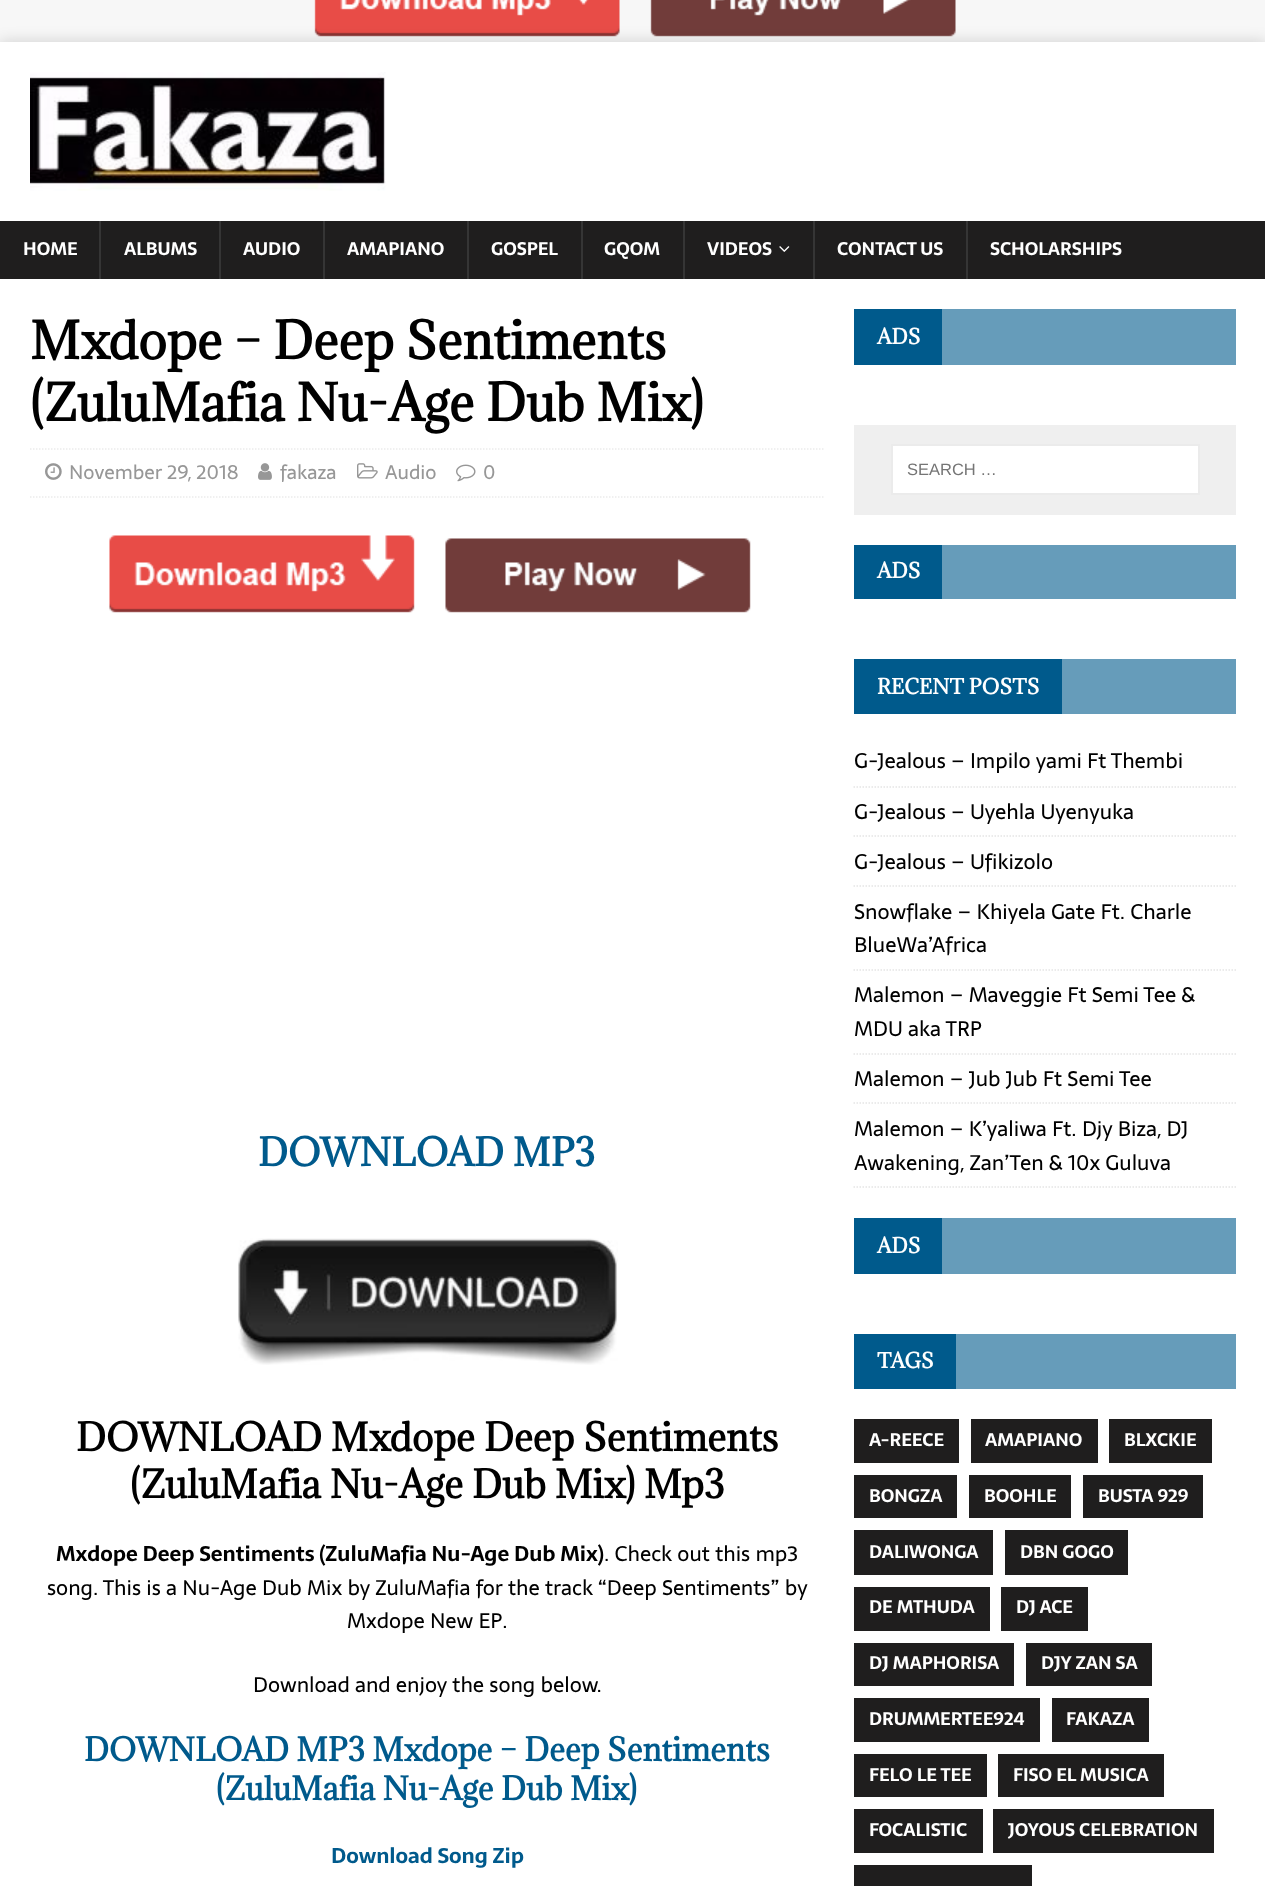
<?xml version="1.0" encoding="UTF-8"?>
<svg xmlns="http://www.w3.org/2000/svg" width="1265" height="1886">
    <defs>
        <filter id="blur1" x="-50%" y="-200%" width="200%" height="500%"><feGaussianBlur stdDeviation="7.5"/></filter>
    </defs>
    <rect width="100%" height="100%" fill="#F7F7F7"/>
    <image x="314" y="0" width="642" height="37" href="img_01.png"/>
    <rect x="0" y="42" width="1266" height="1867" fill="#323232" fill-opacity="0.17" filter="url(#blur1)"/>
    <rect x="0" y="42" width="1265" height="179" fill="#FFFFFF"/>
    <image x="30" y="72" width="356" height="119" href="img_02.png"/>
    <rect x="0" y="221" width="1265" height="58" fill="#1F1E1E"/>
    <text x="23" y="255" font-family="Sarala" font-size="18" font-weight="700" fill="#FFFFFF">HOME</text>
    <rect x="99" y="221" width="2" height="58" fill="#353535"/>
    <text x="124" y="255" font-family="Sarala" font-size="18" font-weight="700" fill="#FFFFFF">ALBUMS</text>
    <rect x="219" y="221" width="2" height="58" fill="#353535"/>
    <text x="243" y="255" font-family="Sarala" font-size="18" font-weight="700" fill="#FFFFFF">AUDIO</text>
    <rect x="323" y="221" width="2" height="58" fill="#353535"/>
    <text x="347" y="255" font-family="Sarala" font-size="18" font-weight="700" fill="#FFFFFF">AMAPIANO</text>
    <rect x="467" y="221" width="2" height="58" fill="#353535"/>
    <text x="491" y="255" font-family="Sarala" font-size="18" font-weight="700" fill="#FFFFFF">GOSPEL</text>
    <rect x="581" y="221" width="2" height="58" fill="#353535"/>
    <text x="604" y="255" font-family="Sarala" font-size="18" font-weight="700" fill="#FFFFFF">GQOM</text>
    <rect x="683" y="221" width="2" height="58" fill="#353535"/>
    <text x="707" y="255" font-family="Sarala" font-size="18" font-weight="700" fill="#FFFFFF">VIDEOS</text>
    <image x="779" y="246" width="11" height="6" href="img_03.png"/>
    <rect x="813" y="221" width="2" height="58" fill="#353535"/>
    <text x="837" y="255" font-family="Sarala" font-size="18" font-weight="700" fill="#FFFFFF">CONTACT US</text>
    <rect x="966" y="221" width="2" height="58" fill="#353535"/>
    <text x="990" y="255" font-family="Sarala" font-size="18" font-weight="700" fill="#FFFFFF">SCHOLARSHIPS</text>
    <rect x="0" y="279" width="1265" height="1607" fill="#FFFFFF"/>
    <text font-family="Adamina" font-size="48" font-weight="700" fill="#000000">
        <tspan x="30" y="359">Mxdope – Deep Sentiments</tspan>
        <tspan x="30" y="421">(ZuluMafia Nu-Age Dub Mix)</tspan>
    </text>
    <path d="M 30 449 H 823.5" fill="none" stroke="#EBEBEB" stroke-width="1.5" stroke-dasharray="1.5 1.5"/>
    <path d="M 30 497 H 823.5" fill="none" stroke="#EBEBEB" stroke-width="1.5" stroke-dasharray="1.5 1.5"/>
    <image x="45" y="463" width="17" height="17" href="img_04.png"/>
    <text x="69" y="479" font-family="Sarala" font-size="19.5" fill="#979797">November 29, 2018</text>
    <image x="258" y="463" width="14" height="17" href="img_05.png"/>
    <text x="280" y="479" font-family="Sarala" font-size="19.5" fill="#979797">fakaza</text>
    <image x="357" y="463" width="21" height="16" href="img_06.png"/>
    <text x="385" y="479" font-family="Sarala" font-size="19.5" fill="#979797">Audio</text>
    <image x="456" y="464" width="20" height="18" href="img_07.png"/>
    <text x="483" y="479" font-family="Sarala" font-size="19.5" fill="#979797">0</text>
    <image x="109" y="535" width="642" height="78" href="img_08.png"/>
    <text x="258" y="1166" font-family="Adamina" font-size="36" font-weight="700" fill="#005A8C">DOWNLOAD MP3</text>
    <image x="238" y="1238" width="380" height="127" href="img_09.png"/>
    <text x="76" y="1451" font-family="Adamina" font-size="36" font-weight="700" fill="#000000">DOWNLOAD Mxdope Deep Sentiments</text>
    <text x="130" y="1498" font-family="Adamina" font-size="36" font-weight="700" fill="#000000">(ZuluMafia Nu-Age Dub Mix) Mp3</text>
    <text x="56" y="1561" font-family="Sarala" font-size="21" font-weight="700" fill="#000000">Mxdope Deep Sentiments (ZuluMafia Nu-Age Dub Mix)</text>
    <text x="604" y="1561" font-family="Sarala" font-size="21" fill="#000000">. Check out this mp3</text>
    <text x="47" y="1595" font-family="Sarala" font-size="21" fill="#000000">song. This is a Nu-Age Dub Mix by ZuluMafia for the track “Deep Sentiments” by</text>
    <text x="347" y="1628" font-family="Sarala" font-size="21" fill="#000000">Mxdope New EP.</text>
    <text x="253" y="1692" font-family="Sarala" font-size="21" fill="#000000">Download and enjoy the song below.</text>
    <text x="84" y="1761" font-family="Adamina" font-size="30" font-weight="700" fill="#005A8C">DOWNLOAD MP3 Mxdope – Deep Sentiments</text>
    <text x="216" y="1800" font-family="Adamina" font-size="30" font-weight="700" fill="#005A8C">(ZuluMafia Nu-Age Dub Mix)</text>
    <text x="331" y="1863" font-family="Sarala" font-size="21" font-weight="700" fill="#005A8C">Download Song Zip</text>
    <rect x="942" y="309" width="294" height="56" fill="#669CBA"/>
    <rect x="854" y="309" width="88" height="56" fill="#005A8C"/>
    <text x="877" y="344" font-family="Adamina" font-size="19.5" font-weight="700" fill="#FFFFFF">ADS</text>
    <rect x="854" y="425" width="382" height="90" fill="#EFEFEF"/>
    <rect x="892" y="445" width="307" height="49" fill="#FFFFFF" stroke="#EBEBEB" stroke-width="2"/>
    <text x="907" y="475" font-family="Liberation Sans" font-size="16.5" fill="#757575">SEARCH …</text>
    <rect x="942" y="545" width="294" height="54" fill="#669CBA"/>
    <rect x="854" y="545" width="88" height="54" fill="#005A8C"/>
    <text x="877" y="578" font-family="Adamina" font-size="19.5" font-weight="700" fill="#FFFFFF">ADS</text>
    <rect x="1062" y="659" width="174" height="55" fill="#669CBA"/>
    <rect x="854" y="659" width="208" height="55" fill="#005A8C"/>
    <text x="877" y="694" font-family="Adamina" font-size="19.5" font-weight="700" fill="#FFFFFF">RECENT POSTS</text>
    <path d="M 853.5 787 H 1236" fill="none" stroke="#E5E5E5" stroke-width="1.5" stroke-dasharray="1.5 1.5"/>
    <text x="854" y="768" font-family="Sarala" font-size="21" fill="#000000">G-Jealous – Impilo yami Ft Thembi</text>
    <path d="M 853.5 836 H 1236" fill="none" stroke="#E5E5E5" stroke-width="1.5" stroke-dasharray="1.5 1.5"/>
    <text x="854" y="819" font-family="Sarala" font-size="21" fill="#000000">G-Jealous – Uyehla Uyenyuka</text>
    <path d="M 853.5 886 H 1236" fill="none" stroke="#E5E5E5" stroke-width="1.5" stroke-dasharray="1.5 1.5"/>
    <text x="854" y="869" font-family="Sarala" font-size="21" fill="#000000">G-Jealous – Ufikizolo</text>
    <path d="M 853.5 970 H 1236" fill="none" stroke="#E5E5E5" stroke-width="1.5" stroke-dasharray="1.5 1.5"/>
    <text font-family="Sarala" font-size="21" fill="#000000">
        <tspan x="854" y="919">Snowflake – Khiyela Gate Ft. Charle</tspan>
        <tspan x="854" y="952">BlueWa’Africa</tspan>
    </text>
    <path d="M 853.5 1054 H 1236" fill="none" stroke="#E5E5E5" stroke-width="1.5" stroke-dasharray="1.5 1.5"/>
    <text font-family="Sarala" font-size="21" fill="#000000">
        <tspan x="854" y="1002">Malemon – Maveggie Ft Semi Tee &amp;</tspan>
        <tspan x="854" y="1036">MDU aka TRP</tspan>
    </text>
    <path d="M 853.5 1103 H 1236" fill="none" stroke="#E5E5E5" stroke-width="1.5" stroke-dasharray="1.5 1.5"/>
    <text x="854" y="1086" font-family="Sarala" font-size="21" fill="#000000">Malemon – Jub Jub Ft Semi Tee</text>
    <path d="M 853.5 1187 H 1236" fill="none" stroke="#E5E5E5" stroke-width="1.5" stroke-dasharray="1.5 1.5"/>
    <text font-family="Sarala" font-size="21" fill="#000000">
        <tspan x="854" y="1136">Malemon – K’yaliwa Ft. Djy Biza, DJ</tspan>
        <tspan x="854" y="1170">Awakening, Zan’Ten &amp; 10x Guluva</tspan>
    </text>
    <rect x="942" y="1218" width="294" height="56" fill="#669CBA"/>
    <rect x="854" y="1218" width="88" height="56" fill="#005A8C"/>
    <text x="877" y="1253" font-family="Adamina" font-size="19.5" font-weight="700" fill="#FFFFFF">ADS</text>
    <rect x="956" y="1334" width="280" height="55" fill="#669CBA"/>
    <rect x="854" y="1334" width="102" height="55" fill="#005A8C"/>
    <text x="877" y="1368" font-family="Adamina" font-size="19.5" font-weight="700" fill="#FFFFFF">TAGS</text>
    <rect x="854" y="1419" width="105" height="44" fill="#1F1E1E"/>
    <text x="869" y="1446" font-family="Sarala" font-size="18" font-weight="700" fill="#FFFFFF">A-REECE</text>
    <rect x="971" y="1419" width="127" height="44" fill="#1F1E1E"/>
    <text x="985" y="1446" font-family="Sarala" font-size="18" font-weight="700" fill="#FFFFFF">AMAPIANO</text>
    <rect x="1109" y="1419" width="103" height="44" fill="#1F1E1E"/>
    <text x="1124" y="1446" font-family="Sarala" font-size="18" font-weight="700" fill="#FFFFFF">BLXCKIE</text>
    <rect x="854" y="1475" width="103" height="43" fill="#1F1E1E"/>
    <text x="869" y="1502" font-family="Sarala" font-size="18" font-weight="700" fill="#FFFFFF">BONGZA</text>
    <rect x="969" y="1475" width="102" height="43" fill="#1F1E1E"/>
    <text x="984" y="1502" font-family="Sarala" font-size="18" font-weight="700" fill="#FFFFFF">BOOHLE</text>
    <rect x="1083" y="1475" width="120" height="43" fill="#1F1E1E"/>
    <text x="1098" y="1502" font-family="Sarala" font-size="18" font-weight="700" fill="#FFFFFF">BUSTA 929</text>
    <rect x="854" y="1530" width="139" height="45" fill="#1F1E1E"/>
    <text x="869" y="1558" font-family="Sarala" font-size="18" font-weight="700" fill="#FFFFFF">DALIWONGA</text>
    <rect x="1005" y="1530" width="123" height="45" fill="#1F1E1E"/>
    <text x="1020" y="1558" font-family="Sarala" font-size="18" font-weight="700" fill="#FFFFFF">DBN GOGO</text>
    <rect x="854" y="1587" width="136" height="44" fill="#1F1E1E"/>
    <text x="869" y="1613" font-family="Sarala" font-size="18" font-weight="700" fill="#FFFFFF">DE MTHUDA</text>
    <rect x="1001" y="1587" width="87" height="44" fill="#1F1E1E"/>
    <text x="1016" y="1613" font-family="Sarala" font-size="18" font-weight="700" fill="#FFFFFF">DJ ACE</text>
    <rect x="854" y="1643" width="160" height="43" fill="#1F1E1E"/>
    <text x="869" y="1669" font-family="Sarala" font-size="18" font-weight="700" fill="#FFFFFF">DJ MAPHORISA</text>
    <rect x="1026" y="1643" width="126" height="43" fill="#1F1E1E"/>
    <text x="1041" y="1669" font-family="Sarala" font-size="18" font-weight="700" fill="#FFFFFF">DJY ZAN SA</text>
    <rect x="854" y="1698" width="186" height="44" fill="#1F1E1E"/>
    <text x="869" y="1725" font-family="Sarala" font-size="18" font-weight="700" fill="#FFFFFF">DRUMMERTEE924</text>
    <rect x="1052" y="1698" width="97" height="44" fill="#1F1E1E"/>
    <text x="1066" y="1725" font-family="Sarala" font-size="18" font-weight="700" fill="#FFFFFF">FAKAZA</text>
    <rect x="854" y="1754" width="133" height="43" fill="#1F1E1E"/>
    <text x="869" y="1781" font-family="Sarala" font-size="18" font-weight="700" fill="#FFFFFF">FELO LE TEE</text>
    <rect x="998" y="1754" width="166" height="43" fill="#1F1E1E"/>
    <text x="1013" y="1781" font-family="Sarala" font-size="18" font-weight="700" fill="#FFFFFF">FISO EL MUSICA</text>
    <rect x="854" y="1809" width="129" height="44" fill="#1F1E1E"/>
    <text x="869" y="1836" font-family="Sarala" font-size="18" font-weight="700" fill="#FFFFFF">FOCALISTIC</text>
    <rect x="993" y="1809" width="221" height="44" fill="#1F1E1E"/>
    <text x="1008" y="1836" font-family="Sarala" font-size="18" font-weight="700" fill="#FFFFFF">JOYOUS CELEBRATION</text>
    <rect x="854" y="1865" width="178" height="21" fill="#1F1E1E"/>
</svg>
